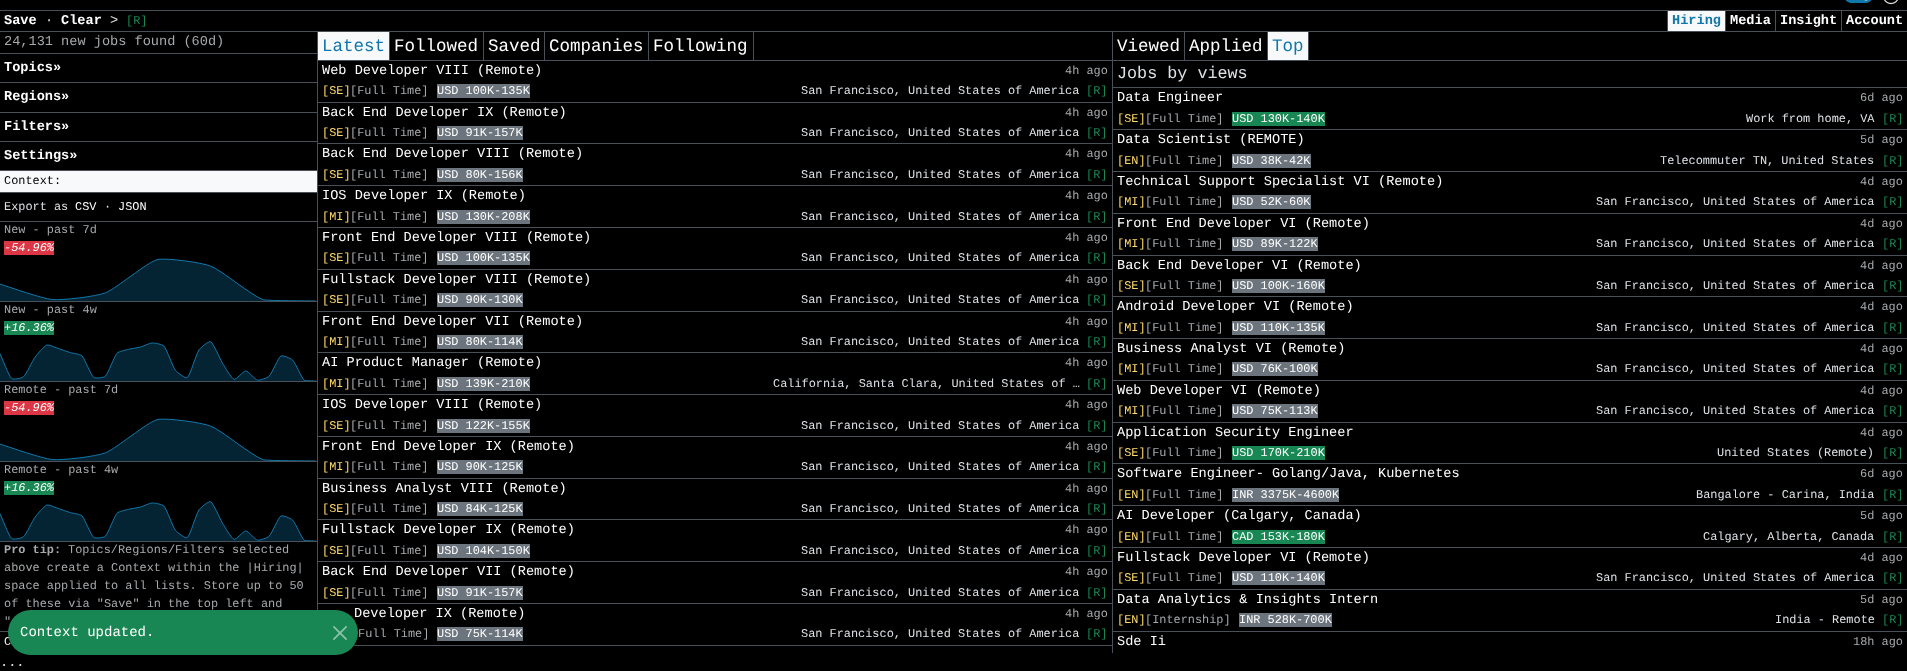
<?xml version="1.0" encoding="UTF-8"?>
<svg xmlns="http://www.w3.org/2000/svg" width="1907" height="671">
    <defs>
        <filter id="blur1" x="-50%" y="-200%" width="200%" height="500%"><feGaussianBlur stdDeviation="8"/></filter>
    </defs>
    <rect width="100%" height="100%" fill="#000000"/>
    <rect x="0" y="10" width="1907" height="1" fill="#495057"/>
    <rect x="1845" y="-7" width="27" height="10" rx="7" fill="#1077AA"/>
    <circle cx="1866" cy="-4" r="4.5" fill="#FFFFFF"/>
    <rect x="1845.5" y="-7.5" width="26" height="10" rx="6.5" fill="none" stroke="#1077AA"/>
    <image x="1884" y="0" width="14" height="5" href="img_01.png"/>
    <rect x="0" y="31" width="1907" height="1" fill="#495057"/>
    <text x="4" y="24" font-family="Liberation Mono" font-size="13.6" font-weight="700" fill="#FFFFFF">Save</text>
    <text x="45" y="24" font-family="Liberation Mono" font-size="13.6" fill="#DEE2E6">·</text>
    <text x="61" y="24" font-family="Liberation Mono" font-size="13.6" font-weight="700" fill="#FFFFFF">Clear</text>
    <text x="110" y="24" font-family="Liberation Mono" font-size="13.6" fill="#DEE2E6">&gt;</text>
    <text x="126" y="24" font-family="Liberation Mono" font-size="11.9" fill="#198754">[R]</text>
    <rect x="1668" y="11" width="57" height="20" fill="#F8F9FA"/>
    <rect x="1667" y="11" width="1" height="20" fill="#495057"/>
    <text x="1672" y="24" font-family="Liberation Mono" font-size="13.6" font-weight="700" fill="#1077AA">Hiring</text>
    <rect x="1725" y="11" width="1" height="20" fill="#495057"/>
    <text x="1730" y="24" font-family="Liberation Mono" font-size="13.6" font-weight="700" fill="#FFFFFF">Media</text>
    <rect x="1775" y="11" width="1" height="20" fill="#495057"/>
    <text x="1780" y="24" font-family="Liberation Mono" font-size="13.6" font-weight="700" fill="#FFFFFF">Insight</text>
    <rect x="1841" y="11" width="1" height="20" fill="#495057"/>
    <text x="1846" y="24" font-family="Liberation Mono" font-size="13.6" font-weight="700" fill="#FFFFFF">Account</text>
    <rect x="317" y="32" width="1" height="578" fill="#495057"/>
    <rect x="0" y="53" width="317" height="1" fill="#495057"/>
    <text x="4" y="45" font-family="Liberation Mono" font-size="13.6" fill="#A7AAAD">24,131 new jobs found (60d)</text>
    <rect x="0" y="82" width="317" height="1" fill="#495057"/>
    <text x="4" y="71" font-family="Liberation Mono" font-size="13.6" font-weight="700" fill="#FFFFFF">Topics»</text>
    <rect x="0" y="112" width="317" height="1" fill="#495057"/>
    <text x="4" y="100" font-family="Liberation Mono" font-size="13.6" font-weight="700" fill="#FFFFFF">Regions»</text>
    <rect x="0" y="141" width="317" height="1" fill="#495057"/>
    <text x="4" y="130" font-family="Liberation Mono" font-size="13.6" font-weight="700" fill="#FFFFFF">Filters»</text>
    <rect x="0" y="170" width="317" height="1" fill="#495057"/>
    <text x="4" y="159" font-family="Liberation Mono" font-size="13.6" font-weight="700" fill="#FFFFFF">Settings»</text>
    <rect x="0" y="171" width="317" height="21" fill="#F8F9FA"/>
    <rect x="0" y="192" width="317" height="1" fill="#495057"/>
    <text x="4" y="184" font-family="Liberation Mono" font-size="11.9" fill="#000000">Context:</text>
    <rect x="0" y="221" width="317" height="1" fill="#495057"/>
    <text x="4" y="210" font-family="Liberation Mono" font-size="11.9" fill="#DEE2E6">Export as</text>
    <text x="75" y="210" font-family="Liberation Mono" font-size="11.9" fill="#FFFFFF">CSV</text>
    <text x="104" y="210" font-family="Liberation Mono" font-size="11.9" fill="#DEE2E6">·</text>
    <text x="118" y="210" font-family="Liberation Mono" font-size="11.9" fill="#FFFFFF">JSON</text>
    <text x="4" y="233" font-family="Liberation Mono" font-size="11.9" fill="#A7AAAD">New - past 7d</text>
    <rect x="4" y="241" width="50" height="14" fill="#DC3545"/>
    <text x="4" y="251" font-family="Liberation Mono" font-size="11.9" font-style="italic" fill="#FFFFFF">-54.96%</text>
    <rect x="0" y="301" width="317" height="1" fill="#495057"/>
    <image x="0" y="258" width="316" height="43" href="img_02.png"/>
    <text x="4" y="313" font-family="Liberation Mono" font-size="11.9" fill="#A7AAAD">New - past 4w</text>
    <rect x="4" y="321" width="50" height="14" fill="#198754"/>
    <text x="4" y="331" font-family="Liberation Mono" font-size="11.9" font-style="italic" fill="#FFFFFF">+16.36%</text>
    <rect x="0" y="381" width="317" height="1" fill="#495057"/>
    <image x="0" y="341" width="316" height="40" href="img_03.png"/>
    <text x="4" y="393" font-family="Liberation Mono" font-size="11.9" fill="#A7AAAD">Remote - past 7d</text>
    <rect x="4" y="401" width="50" height="14" fill="#DC3545"/>
    <text x="4" y="411" font-family="Liberation Mono" font-size="11.9" font-style="italic" fill="#FFFFFF">-54.96%</text>
    <rect x="0" y="461" width="317" height="1" fill="#495057"/>
    <image x="0" y="418" width="316" height="43" href="img_02.png"/>
    <text x="4" y="473" font-family="Liberation Mono" font-size="11.9" fill="#A7AAAD">Remote - past 4w</text>
    <rect x="4" y="481" width="50" height="14" fill="#198754"/>
    <text x="4" y="491" font-family="Liberation Mono" font-size="11.9" font-style="italic" fill="#FFFFFF">+16.36%</text>
    <rect x="0" y="541" width="317" height="1" fill="#495057"/>
    <image x="0" y="501" width="316" height="40" href="img_03.png"/>
    <text x="4" y="553" font-family="Liberation Mono" font-size="11.9" font-weight="700" fill="#A7AAAD">Pro tip:</text>
    <text x="68" y="553" font-family="Liberation Mono" font-size="11.9" fill="#A7AAAD">Topics/Regions/Filters selected</text>
    <text font-family="Liberation Mono" font-size="11.9" fill="#A7AAAD">
        <tspan x="4" y="571">above create a Context within the |Hiring|</tspan>
        <tspan x="4" y="589">space applied to all lists. Store up to 50</tspan>
        <tspan x="4" y="607">of these via "Save" in the top left and</tspan>
        <tspan x="4" y="625">"</tspan>
    </text>
    <rect x="0" y="631" width="9" height="1" fill="#495057"/>
    <text x="4" y="645" font-family="Liberation Mono" font-size="11.9" fill="#FFFFFF">C</text>
    <rect x="1112" y="32" width="1" height="621" fill="#495057"/>
    <rect x="318" y="60" width="794" height="1" fill="#495057"/>
    <rect x="318" y="32" width="71" height="28" fill="#F8F9FA"/>
    <rect x="389" y="32" width="1" height="28" fill="#495057"/>
    <text x="322" y="51" font-family="Liberation Mono" font-size="17.5" fill="#1077AA">Latest</text>
    <rect x="483" y="32" width="1" height="28" fill="#495057"/>
    <text x="394" y="51" font-family="Liberation Mono" font-size="17.5" fill="#FFFFFF">Followed</text>
    <rect x="544" y="32" width="1" height="28" fill="#495057"/>
    <text x="488" y="51" font-family="Liberation Mono" font-size="17.5" fill="#FFFFFF">Saved</text>
    <rect x="648" y="32" width="1" height="28" fill="#495057"/>
    <text x="549" y="51" font-family="Liberation Mono" font-size="17.5" fill="#FFFFFF">Companies</text>
    <rect x="753" y="32" width="1" height="28" fill="#495057"/>
    <text x="653" y="51" font-family="Liberation Mono" font-size="17.5" fill="#FFFFFF">Following</text>
    <rect x="318" y="102" width="794" height="1" fill="#495057"/>
    <text x="322" y="74" font-family="Liberation Mono" font-size="13.6" fill="#FFFFFF">Web Developer VIII (Remote)</text>
    <text x="1065" y="74" font-family="Liberation Mono" font-size="11.9" fill="#A7AAAD">4h ago</text>
    <text x="322" y="94" font-family="Liberation Mono" font-size="11.9" fill="#FFDA6A">[SE]</text>
    <text x="350" y="94" font-family="Liberation Mono" font-size="11.9" fill="#A7AAAD">[Full Time]</text>
    <rect x="437" y="84" width="93" height="14" fill="#6C757D"/>
    <text x="437" y="94" font-family="Liberation Mono" font-size="11.9" fill="#FFFFFF">USD 100K-135K</text>
    <text x="801" y="94" font-family="Liberation Mono" font-size="11.9" fill="#DEE2E6">San Francisco, United States of America</text>
    <text x="1086" y="94" font-family="Liberation Mono" font-size="11.9" fill="#198754">[R]</text>
    <rect x="318" y="143" width="794" height="1" fill="#495057"/>
    <text x="322" y="116" font-family="Liberation Mono" font-size="13.6" fill="#FFFFFF">Back End Developer IX (Remote)</text>
    <text x="1065" y="116" font-family="Liberation Mono" font-size="11.9" fill="#A7AAAD">4h ago</text>
    <text x="322" y="136" font-family="Liberation Mono" font-size="11.9" fill="#FFDA6A">[SE]</text>
    <text x="350" y="136" font-family="Liberation Mono" font-size="11.9" fill="#A7AAAD">[Full Time]</text>
    <rect x="437" y="126" width="86" height="14" fill="#6C757D"/>
    <text x="437" y="136" font-family="Liberation Mono" font-size="11.9" fill="#FFFFFF">USD 91K-157K</text>
    <text x="801" y="136" font-family="Liberation Mono" font-size="11.9" fill="#DEE2E6">San Francisco, United States of America</text>
    <text x="1086" y="136" font-family="Liberation Mono" font-size="11.9" fill="#198754">[R]</text>
    <rect x="318" y="185" width="794" height="1" fill="#495057"/>
    <text x="322" y="157" font-family="Liberation Mono" font-size="13.6" fill="#FFFFFF">Back End Developer VIII (Remote)</text>
    <text x="1065" y="157" font-family="Liberation Mono" font-size="11.9" fill="#A7AAAD">4h ago</text>
    <text x="322" y="178" font-family="Liberation Mono" font-size="11.9" fill="#FFDA6A">[SE]</text>
    <text x="350" y="178" font-family="Liberation Mono" font-size="11.9" fill="#A7AAAD">[Full Time]</text>
    <rect x="437" y="168" width="86" height="14" fill="#6C757D"/>
    <text x="437" y="178" font-family="Liberation Mono" font-size="11.9" fill="#FFFFFF">USD 80K-156K</text>
    <text x="801" y="178" font-family="Liberation Mono" font-size="11.9" fill="#DEE2E6">San Francisco, United States of America</text>
    <text x="1086" y="178" font-family="Liberation Mono" font-size="11.9" fill="#198754">[R]</text>
    <rect x="318" y="227" width="794" height="1" fill="#495057"/>
    <text x="322" y="199" font-family="Liberation Mono" font-size="13.6" fill="#FFFFFF">IOS Developer IX (Remote)</text>
    <text x="1065" y="199" font-family="Liberation Mono" font-size="11.9" fill="#A7AAAD">4h ago</text>
    <text x="322" y="220" font-family="Liberation Mono" font-size="11.9" fill="#FFDA6A">[MI]</text>
    <text x="350" y="220" font-family="Liberation Mono" font-size="11.9" fill="#A7AAAD">[Full Time]</text>
    <rect x="437" y="210" width="93" height="14" fill="#6C757D"/>
    <text x="437" y="220" font-family="Liberation Mono" font-size="11.9" fill="#FFFFFF">USD 130K-208K</text>
    <text x="801" y="220" font-family="Liberation Mono" font-size="11.9" fill="#DEE2E6">San Francisco, United States of America</text>
    <text x="1086" y="220" font-family="Liberation Mono" font-size="11.9" fill="#198754">[R]</text>
    <rect x="318" y="269" width="794" height="1" fill="#495057"/>
    <text x="322" y="241" font-family="Liberation Mono" font-size="13.6" fill="#FFFFFF">Front End Developer VIII (Remote)</text>
    <text x="1065" y="241" font-family="Liberation Mono" font-size="11.9" fill="#A7AAAD">4h ago</text>
    <text x="322" y="261" font-family="Liberation Mono" font-size="11.9" fill="#FFDA6A">[SE]</text>
    <text x="350" y="261" font-family="Liberation Mono" font-size="11.9" fill="#A7AAAD">[Full Time]</text>
    <rect x="437" y="251" width="93" height="14" fill="#6C757D"/>
    <text x="437" y="261" font-family="Liberation Mono" font-size="11.9" fill="#FFFFFF">USD 100K-135K</text>
    <text x="801" y="261" font-family="Liberation Mono" font-size="11.9" fill="#DEE2E6">San Francisco, United States of America</text>
    <text x="1086" y="261" font-family="Liberation Mono" font-size="11.9" fill="#198754">[R]</text>
    <rect x="318" y="311" width="794" height="1" fill="#495057"/>
    <text x="322" y="283" font-family="Liberation Mono" font-size="13.6" fill="#FFFFFF">Fullstack Developer VIII (Remote)</text>
    <text x="1065" y="283" font-family="Liberation Mono" font-size="11.9" fill="#A7AAAD">4h ago</text>
    <text x="322" y="303" font-family="Liberation Mono" font-size="11.9" fill="#FFDA6A">[SE]</text>
    <text x="350" y="303" font-family="Liberation Mono" font-size="11.9" fill="#A7AAAD">[Full Time]</text>
    <rect x="437" y="293" width="86" height="14" fill="#6C757D"/>
    <text x="437" y="303" font-family="Liberation Mono" font-size="11.9" fill="#FFFFFF">USD 90K-130K</text>
    <text x="801" y="303" font-family="Liberation Mono" font-size="11.9" fill="#DEE2E6">San Francisco, United States of America</text>
    <text x="1086" y="303" font-family="Liberation Mono" font-size="11.9" fill="#198754">[R]</text>
    <rect x="318" y="352" width="794" height="1" fill="#495057"/>
    <text x="322" y="325" font-family="Liberation Mono" font-size="13.6" fill="#FFFFFF">Front End Developer VII (Remote)</text>
    <text x="1065" y="325" font-family="Liberation Mono" font-size="11.9" fill="#A7AAAD">4h ago</text>
    <text x="322" y="345" font-family="Liberation Mono" font-size="11.9" fill="#FFDA6A">[MI]</text>
    <text x="350" y="345" font-family="Liberation Mono" font-size="11.9" fill="#A7AAAD">[Full Time]</text>
    <rect x="437" y="335" width="86" height="14" fill="#6C757D"/>
    <text x="437" y="345" font-family="Liberation Mono" font-size="11.9" fill="#FFFFFF">USD 80K-114K</text>
    <text x="801" y="345" font-family="Liberation Mono" font-size="11.9" fill="#DEE2E6">San Francisco, United States of America</text>
    <text x="1086" y="345" font-family="Liberation Mono" font-size="11.9" fill="#198754">[R]</text>
    <rect x="318" y="394" width="794" height="1" fill="#495057"/>
    <text x="322" y="366" font-family="Liberation Mono" font-size="13.6" fill="#FFFFFF">AI Product Manager (Remote)</text>
    <text x="1065" y="366" font-family="Liberation Mono" font-size="11.9" fill="#A7AAAD">4h ago</text>
    <text x="322" y="387" font-family="Liberation Mono" font-size="11.9" fill="#FFDA6A">[MI]</text>
    <text x="350" y="387" font-family="Liberation Mono" font-size="11.9" fill="#A7AAAD">[Full Time]</text>
    <rect x="437" y="377" width="93" height="14" fill="#6C757D"/>
    <text x="437" y="387" font-family="Liberation Mono" font-size="11.9" fill="#FFFFFF">USD 139K-210K</text>
    <text x="773" y="387" font-family="Liberation Mono" font-size="11.9" fill="#DEE2E6">California, Santa Clara, United States of …</text>
    <text x="1086" y="387" font-family="Liberation Mono" font-size="11.9" fill="#198754">[R]</text>
    <rect x="318" y="436" width="794" height="1" fill="#495057"/>
    <text x="322" y="408" font-family="Liberation Mono" font-size="13.6" fill="#FFFFFF">IOS Developer VIII (Remote)</text>
    <text x="1065" y="408" font-family="Liberation Mono" font-size="11.9" fill="#A7AAAD">4h ago</text>
    <text x="322" y="429" font-family="Liberation Mono" font-size="11.9" fill="#FFDA6A">[SE]</text>
    <text x="350" y="429" font-family="Liberation Mono" font-size="11.9" fill="#A7AAAD">[Full Time]</text>
    <rect x="437" y="419" width="93" height="14" fill="#6C757D"/>
    <text x="437" y="429" font-family="Liberation Mono" font-size="11.9" fill="#FFFFFF">USD 122K-155K</text>
    <text x="801" y="429" font-family="Liberation Mono" font-size="11.9" fill="#DEE2E6">San Francisco, United States of America</text>
    <text x="1086" y="429" font-family="Liberation Mono" font-size="11.9" fill="#198754">[R]</text>
    <rect x="318" y="478" width="794" height="1" fill="#495057"/>
    <text x="322" y="450" font-family="Liberation Mono" font-size="13.6" fill="#FFFFFF">Front End Developer IX (Remote)</text>
    <text x="1065" y="450" font-family="Liberation Mono" font-size="11.9" fill="#A7AAAD">4h ago</text>
    <text x="322" y="470" font-family="Liberation Mono" font-size="11.9" fill="#FFDA6A">[MI]</text>
    <text x="350" y="470" font-family="Liberation Mono" font-size="11.9" fill="#A7AAAD">[Full Time]</text>
    <rect x="437" y="460" width="86" height="14" fill="#6C757D"/>
    <text x="437" y="470" font-family="Liberation Mono" font-size="11.9" fill="#FFFFFF">USD 90K-125K</text>
    <text x="801" y="470" font-family="Liberation Mono" font-size="11.9" fill="#DEE2E6">San Francisco, United States of America</text>
    <text x="1086" y="470" font-family="Liberation Mono" font-size="11.9" fill="#198754">[R]</text>
    <rect x="318" y="519" width="794" height="1" fill="#495057"/>
    <text x="322" y="492" font-family="Liberation Mono" font-size="13.6" fill="#FFFFFF">Business Analyst VIII (Remote)</text>
    <text x="1065" y="492" font-family="Liberation Mono" font-size="11.9" fill="#A7AAAD">4h ago</text>
    <text x="322" y="512" font-family="Liberation Mono" font-size="11.9" fill="#FFDA6A">[SE]</text>
    <text x="350" y="512" font-family="Liberation Mono" font-size="11.9" fill="#A7AAAD">[Full Time]</text>
    <rect x="437" y="502" width="86" height="14" fill="#6C757D"/>
    <text x="437" y="512" font-family="Liberation Mono" font-size="11.9" fill="#FFFFFF">USD 84K-125K</text>
    <text x="801" y="512" font-family="Liberation Mono" font-size="11.9" fill="#DEE2E6">San Francisco, United States of America</text>
    <text x="1086" y="512" font-family="Liberation Mono" font-size="11.9" fill="#198754">[R]</text>
    <rect x="318" y="561" width="794" height="1" fill="#495057"/>
    <text x="322" y="533" font-family="Liberation Mono" font-size="13.6" fill="#FFFFFF">Fullstack Developer IX (Remote)</text>
    <text x="1065" y="533" font-family="Liberation Mono" font-size="11.9" fill="#A7AAAD">4h ago</text>
    <text x="322" y="554" font-family="Liberation Mono" font-size="11.9" fill="#FFDA6A">[SE]</text>
    <text x="350" y="554" font-family="Liberation Mono" font-size="11.9" fill="#A7AAAD">[Full Time]</text>
    <rect x="437" y="544" width="93" height="14" fill="#6C757D"/>
    <text x="437" y="554" font-family="Liberation Mono" font-size="11.9" fill="#FFFFFF">USD 104K-150K</text>
    <text x="801" y="554" font-family="Liberation Mono" font-size="11.9" fill="#DEE2E6">San Francisco, United States of America</text>
    <text x="1086" y="554" font-family="Liberation Mono" font-size="11.9" fill="#198754">[R]</text>
    <rect x="318" y="603" width="794" height="1" fill="#495057"/>
    <text x="322" y="575" font-family="Liberation Mono" font-size="13.6" fill="#FFFFFF">Back End Developer VII (Remote)</text>
    <text x="1065" y="575" font-family="Liberation Mono" font-size="11.9" fill="#A7AAAD">4h ago</text>
    <text x="322" y="596" font-family="Liberation Mono" font-size="11.9" fill="#FFDA6A">[SE]</text>
    <text x="350" y="596" font-family="Liberation Mono" font-size="11.9" fill="#A7AAAD">[Full Time]</text>
    <rect x="437" y="586" width="86" height="14" fill="#6C757D"/>
    <text x="437" y="596" font-family="Liberation Mono" font-size="11.9" fill="#FFFFFF">USD 91K-157K</text>
    <text x="801" y="596" font-family="Liberation Mono" font-size="11.9" fill="#DEE2E6">San Francisco, United States of America</text>
    <text x="1086" y="596" font-family="Liberation Mono" font-size="11.9" fill="#198754">[R]</text>
    <rect x="353" y="645" width="759" height="1" fill="#495057"/>
    <text x="354" y="617" font-family="Liberation Mono" font-size="13.6" fill="#FFFFFF">Developer IX (Remote)</text>
    <text x="1065" y="617" font-family="Liberation Mono" font-size="11.9" fill="#A7AAAD">4h ago</text>
    <text x="358" y="637" font-family="Liberation Mono" font-size="11.9" fill="#A7AAAD">Full Time]</text>
    <rect x="437" y="627" width="86" height="14" fill="#6C757D"/>
    <text x="437" y="637" font-family="Liberation Mono" font-size="11.9" fill="#FFFFFF">USD 75K-114K</text>
    <text x="801" y="637" font-family="Liberation Mono" font-size="11.9" fill="#DEE2E6">San Francisco, United States of America</text>
    <text x="1086" y="637" font-family="Liberation Mono" font-size="11.9" fill="#198754">[R]</text>
    <rect x="1113" y="60" width="794" height="1" fill="#495057"/>
    <rect x="1184" y="32" width="1" height="28" fill="#495057"/>
    <text x="1117" y="51" font-family="Liberation Mono" font-size="17.5" fill="#FFFFFF">Viewed</text>
    <rect x="1267" y="32" width="1" height="28" fill="#495057"/>
    <text x="1189" y="51" font-family="Liberation Mono" font-size="17.5" fill="#FFFFFF">Applied</text>
    <rect x="1268" y="32" width="40" height="28" fill="#F8F9FA"/>
    <rect x="1308" y="32" width="1" height="28" fill="#495057"/>
    <text x="1272" y="51" font-family="Liberation Mono" font-size="17.5" fill="#1077AA">Top</text>
    <rect x="1113" y="87" width="794" height="1" fill="#495057"/>
    <text x="1117" y="78" font-family="Liberation Mono" font-size="16.75" fill="#DEE2E6">Jobs by views</text>
    <rect x="1113" y="129" width="794" height="1" fill="#495057"/>
    <text x="1117" y="101" font-family="Liberation Mono" font-size="13.6" fill="#FFFFFF">Data Engineer</text>
    <text x="1860" y="101" font-family="Liberation Mono" font-size="11.9" fill="#A7AAAD">6d ago</text>
    <text x="1117" y="122" font-family="Liberation Mono" font-size="11.9" fill="#FFDA6A">[SE]</text>
    <text x="1145" y="122" font-family="Liberation Mono" font-size="11.9" fill="#A7AAAD">[Full Time]</text>
    <rect x="1232" y="112" width="93" height="14" fill="#198754"/>
    <text x="1232" y="122" font-family="Liberation Mono" font-size="11.9" fill="#FFFFFF">USD 130K-140K</text>
    <text x="1746" y="122" font-family="Liberation Mono" font-size="11.9" fill="#DEE2E6">Work from home, VA</text>
    <text x="1882" y="122" font-family="Liberation Mono" font-size="11.9" fill="#198754">[R]</text>
    <rect x="1113" y="171" width="794" height="1" fill="#495057"/>
    <text x="1117" y="143" font-family="Liberation Mono" font-size="13.6" fill="#FFFFFF">Data Scientist (REMOTE)</text>
    <text x="1860" y="143" font-family="Liberation Mono" font-size="11.9" fill="#A7AAAD">5d ago</text>
    <text x="1117" y="164" font-family="Liberation Mono" font-size="11.9" fill="#FFDA6A">[EN]</text>
    <text x="1145" y="164" font-family="Liberation Mono" font-size="11.9" fill="#A7AAAD">[Full Time]</text>
    <rect x="1232" y="154" width="79" height="14" fill="#6C757D"/>
    <text x="1232" y="164" font-family="Liberation Mono" font-size="11.9" fill="#FFFFFF">USD 38K-42K</text>
    <text x="1660" y="164" font-family="Liberation Mono" font-size="11.9" fill="#DEE2E6">Telecommuter TN, United States</text>
    <text x="1882" y="164" font-family="Liberation Mono" font-size="11.9" fill="#198754">[R]</text>
    <rect x="1113" y="213" width="794" height="1" fill="#495057"/>
    <text x="1117" y="185" font-family="Liberation Mono" font-size="13.6" fill="#FFFFFF">Technical Support Specialist VI (Remote)</text>
    <text x="1860" y="185" font-family="Liberation Mono" font-size="11.9" fill="#A7AAAD">4d ago</text>
    <text x="1117" y="205" font-family="Liberation Mono" font-size="11.9" fill="#FFDA6A">[MI]</text>
    <text x="1145" y="205" font-family="Liberation Mono" font-size="11.9" fill="#A7AAAD">[Full Time]</text>
    <rect x="1232" y="195" width="79" height="14" fill="#6C757D"/>
    <text x="1232" y="205" font-family="Liberation Mono" font-size="11.9" fill="#FFFFFF">USD 52K-60K</text>
    <text x="1596" y="205" font-family="Liberation Mono" font-size="11.9" fill="#DEE2E6">San Francisco, United States of America</text>
    <text x="1882" y="205" font-family="Liberation Mono" font-size="11.9" fill="#198754">[R]</text>
    <rect x="1113" y="255" width="794" height="1" fill="#495057"/>
    <text x="1117" y="227" font-family="Liberation Mono" font-size="13.6" fill="#FFFFFF">Front End Developer VI (Remote)</text>
    <text x="1860" y="227" font-family="Liberation Mono" font-size="11.9" fill="#A7AAAD">4d ago</text>
    <text x="1117" y="247" font-family="Liberation Mono" font-size="11.9" fill="#FFDA6A">[MI]</text>
    <text x="1145" y="247" font-family="Liberation Mono" font-size="11.9" fill="#A7AAAD">[Full Time]</text>
    <rect x="1232" y="237" width="86" height="14" fill="#6C757D"/>
    <text x="1232" y="247" font-family="Liberation Mono" font-size="11.9" fill="#FFFFFF">USD 89K-122K</text>
    <text x="1596" y="247" font-family="Liberation Mono" font-size="11.9" fill="#DEE2E6">San Francisco, United States of America</text>
    <text x="1882" y="247" font-family="Liberation Mono" font-size="11.9" fill="#198754">[R]</text>
    <rect x="1113" y="296" width="794" height="1" fill="#495057"/>
    <text x="1117" y="269" font-family="Liberation Mono" font-size="13.6" fill="#FFFFFF">Back End Developer VI (Remote)</text>
    <text x="1860" y="269" font-family="Liberation Mono" font-size="11.9" fill="#A7AAAD">4d ago</text>
    <text x="1117" y="289" font-family="Liberation Mono" font-size="11.9" fill="#FFDA6A">[SE]</text>
    <text x="1145" y="289" font-family="Liberation Mono" font-size="11.9" fill="#A7AAAD">[Full Time]</text>
    <rect x="1232" y="279" width="93" height="14" fill="#6C757D"/>
    <text x="1232" y="289" font-family="Liberation Mono" font-size="11.9" fill="#FFFFFF">USD 100K-160K</text>
    <text x="1596" y="289" font-family="Liberation Mono" font-size="11.9" fill="#DEE2E6">San Francisco, United States of America</text>
    <text x="1882" y="289" font-family="Liberation Mono" font-size="11.9" fill="#198754">[R]</text>
    <rect x="1113" y="338" width="794" height="1" fill="#495057"/>
    <text x="1117" y="310" font-family="Liberation Mono" font-size="13.6" fill="#FFFFFF">Android Developer VI (Remote)</text>
    <text x="1860" y="310" font-family="Liberation Mono" font-size="11.9" fill="#A7AAAD">4d ago</text>
    <text x="1117" y="331" font-family="Liberation Mono" font-size="11.9" fill="#FFDA6A">[MI]</text>
    <text x="1145" y="331" font-family="Liberation Mono" font-size="11.9" fill="#A7AAAD">[Full Time]</text>
    <rect x="1232" y="321" width="93" height="14" fill="#6C757D"/>
    <text x="1232" y="331" font-family="Liberation Mono" font-size="11.9" fill="#FFFFFF">USD 110K-135K</text>
    <text x="1596" y="331" font-family="Liberation Mono" font-size="11.9" fill="#DEE2E6">San Francisco, United States of America</text>
    <text x="1882" y="331" font-family="Liberation Mono" font-size="11.9" fill="#198754">[R]</text>
    <rect x="1113" y="380" width="794" height="1" fill="#495057"/>
    <text x="1117" y="352" font-family="Liberation Mono" font-size="13.6" fill="#FFFFFF">Business Analyst VI (Remote)</text>
    <text x="1860" y="352" font-family="Liberation Mono" font-size="11.9" fill="#A7AAAD">4d ago</text>
    <text x="1117" y="372" font-family="Liberation Mono" font-size="11.9" fill="#FFDA6A">[MI]</text>
    <text x="1145" y="372" font-family="Liberation Mono" font-size="11.9" fill="#A7AAAD">[Full Time]</text>
    <rect x="1232" y="362" width="86" height="14" fill="#6C757D"/>
    <text x="1232" y="372" font-family="Liberation Mono" font-size="11.9" fill="#FFFFFF">USD 76K-100K</text>
    <text x="1596" y="372" font-family="Liberation Mono" font-size="11.9" fill="#DEE2E6">San Francisco, United States of America</text>
    <text x="1882" y="372" font-family="Liberation Mono" font-size="11.9" fill="#198754">[R]</text>
    <rect x="1113" y="422" width="794" height="1" fill="#495057"/>
    <text x="1117" y="394" font-family="Liberation Mono" font-size="13.6" fill="#FFFFFF">Web Developer VI (Remote)</text>
    <text x="1860" y="394" font-family="Liberation Mono" font-size="11.9" fill="#A7AAAD">4d ago</text>
    <text x="1117" y="414" font-family="Liberation Mono" font-size="11.9" fill="#FFDA6A">[MI]</text>
    <text x="1145" y="414" font-family="Liberation Mono" font-size="11.9" fill="#A7AAAD">[Full Time]</text>
    <rect x="1232" y="404" width="86" height="14" fill="#6C757D"/>
    <text x="1232" y="414" font-family="Liberation Mono" font-size="11.9" fill="#FFFFFF">USD 75K-113K</text>
    <text x="1596" y="414" font-family="Liberation Mono" font-size="11.9" fill="#DEE2E6">San Francisco, United States of America</text>
    <text x="1882" y="414" font-family="Liberation Mono" font-size="11.9" fill="#198754">[R]</text>
    <rect x="1113" y="463" width="794" height="1" fill="#495057"/>
    <text x="1117" y="436" font-family="Liberation Mono" font-size="13.6" fill="#FFFFFF">Application Security Engineer</text>
    <text x="1860" y="436" font-family="Liberation Mono" font-size="11.9" fill="#A7AAAD">4d ago</text>
    <text x="1117" y="456" font-family="Liberation Mono" font-size="11.9" fill="#FFDA6A">[SE]</text>
    <text x="1145" y="456" font-family="Liberation Mono" font-size="11.9" fill="#A7AAAD">[Full Time]</text>
    <rect x="1232" y="446" width="93" height="14" fill="#198754"/>
    <text x="1232" y="456" font-family="Liberation Mono" font-size="11.9" fill="#FFFFFF">USD 170K-210K</text>
    <text x="1717" y="456" font-family="Liberation Mono" font-size="11.9" fill="#DEE2E6">United States (Remote)</text>
    <text x="1882" y="456" font-family="Liberation Mono" font-size="11.9" fill="#198754">[R]</text>
    <rect x="1113" y="505" width="794" height="1" fill="#495057"/>
    <text x="1117" y="477" font-family="Liberation Mono" font-size="13.6" fill="#FFFFFF">Software Engineer- Golang/Java, Kubernetes</text>
    <text x="1860" y="477" font-family="Liberation Mono" font-size="11.9" fill="#A7AAAD">6d ago</text>
    <text x="1117" y="498" font-family="Liberation Mono" font-size="11.9" fill="#FFDA6A">[EN]</text>
    <text x="1145" y="498" font-family="Liberation Mono" font-size="11.9" fill="#A7AAAD">[Full Time]</text>
    <rect x="1232" y="488" width="107" height="14" fill="#6C757D"/>
    <text x="1232" y="498" font-family="Liberation Mono" font-size="11.9" fill="#FFFFFF">INR 3375K-4600K</text>
    <text x="1696" y="498" font-family="Liberation Mono" font-size="11.9" fill="#DEE2E6">Bangalore - Carina, India</text>
    <text x="1882" y="498" font-family="Liberation Mono" font-size="11.9" fill="#198754">[R]</text>
    <rect x="1113" y="547" width="794" height="1" fill="#495057"/>
    <text x="1117" y="519" font-family="Liberation Mono" font-size="13.6" fill="#FFFFFF">AI Developer (Calgary, Canada)</text>
    <text x="1860" y="519" font-family="Liberation Mono" font-size="11.9" fill="#A7AAAD">5d ago</text>
    <text x="1117" y="540" font-family="Liberation Mono" font-size="11.9" fill="#FFDA6A">[EN]</text>
    <text x="1145" y="540" font-family="Liberation Mono" font-size="11.9" fill="#A7AAAD">[Full Time]</text>
    <rect x="1232" y="530" width="93" height="14" fill="#198754"/>
    <text x="1232" y="540" font-family="Liberation Mono" font-size="11.9" fill="#FFFFFF">CAD 153K-180K</text>
    <text x="1703" y="540" font-family="Liberation Mono" font-size="11.9" fill="#DEE2E6">Calgary, Alberta, Canada</text>
    <text x="1882" y="540" font-family="Liberation Mono" font-size="11.9" fill="#198754">[R]</text>
    <rect x="1113" y="589" width="794" height="1" fill="#495057"/>
    <text x="1117" y="561" font-family="Liberation Mono" font-size="13.6" fill="#FFFFFF">Fullstack Developer VI (Remote)</text>
    <text x="1860" y="561" font-family="Liberation Mono" font-size="11.9" fill="#A7AAAD">4d ago</text>
    <text x="1117" y="581" font-family="Liberation Mono" font-size="11.9" fill="#FFDA6A">[SE]</text>
    <text x="1145" y="581" font-family="Liberation Mono" font-size="11.9" fill="#A7AAAD">[Full Time]</text>
    <rect x="1232" y="571" width="93" height="14" fill="#6C757D"/>
    <text x="1232" y="581" font-family="Liberation Mono" font-size="11.9" fill="#FFFFFF">USD 110K-140K</text>
    <text x="1596" y="581" font-family="Liberation Mono" font-size="11.9" fill="#DEE2E6">San Francisco, United States of America</text>
    <text x="1882" y="581" font-family="Liberation Mono" font-size="11.9" fill="#198754">[R]</text>
    <rect x="1113" y="631" width="794" height="1" fill="#495057"/>
    <text x="1117" y="603" font-family="Liberation Mono" font-size="13.6" fill="#FFFFFF">Data Analytics &amp; Insights Intern</text>
    <text x="1860" y="603" font-family="Liberation Mono" font-size="11.9" fill="#A7AAAD">5d ago</text>
    <text x="1117" y="623" font-family="Liberation Mono" font-size="11.9" fill="#FFDA6A">[EN]</text>
    <text x="1145" y="623" font-family="Liberation Mono" font-size="11.9" fill="#A7AAAD">[Internship]</text>
    <rect x="1239" y="613" width="93" height="14" fill="#6C757D"/>
    <text x="1239" y="623" font-family="Liberation Mono" font-size="11.9" fill="#FFFFFF">INR 528K-700K</text>
    <text x="1775" y="623" font-family="Liberation Mono" font-size="11.9" fill="#DEE2E6">India - Remote</text>
    <text x="1882" y="623" font-family="Liberation Mono" font-size="11.9" fill="#198754">[R]</text>
    <text x="1117" y="645" font-family="Liberation Mono" font-size="13.6" fill="#FFFFFF">Sde Ii</text>
    <text x="1853" y="645" font-family="Liberation Mono" font-size="11.9" fill="#A7AAAD">18h ago</text>
    <rect x="8" y="618" width="350" height="45" rx="22.5" fill="#000000" fill-opacity="0.15" filter="url(#blur1)"/>
    <rect x="8" y="610" width="350" height="45" rx="22.5" fill="#198754"/>
    <text x="20" y="636" font-family="Liberation Mono" font-size="14" fill="#FFFFFF">Context updated.</text>
    <image x="333" y="626" width="14" height="14" href="img_04.png"/>
    <text x="0" y="666" font-family="Liberation Mono" font-size="13.6" fill="#DEE2E6">...</text>
</svg>
